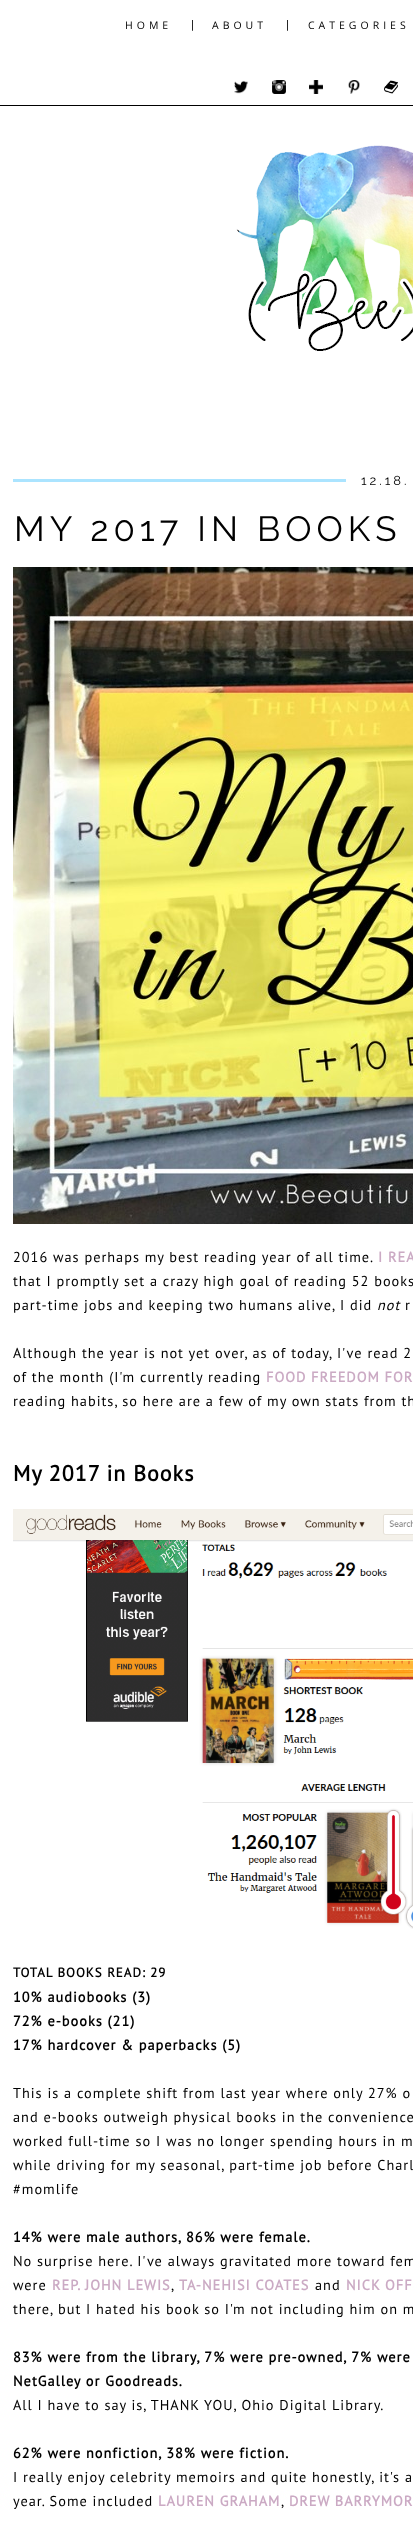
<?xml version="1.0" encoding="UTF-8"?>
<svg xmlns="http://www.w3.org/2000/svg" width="413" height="2524">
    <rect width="100%" height="100%" fill="#FFFFFF"/>
    <rect x="0" y="105" width="413" height="1" fill="#000000"/>
    <text x="125" y="29" font-family="Open Sans" font-size="10.5" letter-spacing="4" fill="#000000">HOME</text>
    <text x="191" y="29" font-family="PT Sans" font-size="13" fill="#000000">|</text>
    <text x="212" y="29" font-family="Open Sans" font-size="10.5" letter-spacing="4" fill="#000000">ABOUT</text>
    <text x="286" y="29" font-family="PT Sans" font-size="13" fill="#000000">|</text>
    <text x="308" y="29" font-family="Open Sans" font-size="10.5" letter-spacing="4" fill="#000000">CATEGORIES</text>
    <image x="234" y="80" width="14" height="14" href="img_01.png"/>
    <image x="272" y="80" width="14" height="14" href="img_02.png"/>
    <image x="309" y="80" width="14" height="14" href="img_03.png"/>
    <image x="348" y="80" width="12" height="14" href="img_04.png"/>
    <image x="384" y="80" width="14" height="14" href="img_05.png"/>
    <image x="236" y="145" width="177" height="206" href="img_06.png"/>
    <rect x="13" y="479" width="333" height="3" fill="#ABE4FF"/>
    <text x="361" y="485" font-family="Raleway" font-size="13" font-weight="100" letter-spacing="3" fill="#000000">12.18.</text>
    <text x="14" y="541" font-family="Raleway" font-size="35" font-weight="100" letter-spacing="5" fill="#000000">MY 2017 IN BOOKS</text>
    <image x="13" y="567" width="400" height="657" href="img_07.png"/>
    <text x="13" y="1262" font-family="PT Sans" font-size="14.3" letter-spacing="1" fill="#000000">2016 was perhaps my best reading year of all time.</text>
    <text x="378" y="1262" font-family="PT Sans" font-size="14.3" font-weight="700" letter-spacing="1" fill="#CBAAC4">I REA</text>
    <text font-family="PT Sans" font-size="14.3" letter-spacing="1" fill="#000000">
        <tspan x="13" y="1286">that I promptly set a crazy high goal of reading 52 books</tspan>
        <tspan x="13" y="1310">part-time jobs and keeping two humans alive, I did</tspan>
    </text>
    <text x="377" y="1310" font-family="PT Sans" font-size="14.3" font-style="italic" letter-spacing="1" fill="#000000">not</text>
    <text x="405" y="1310" font-family="PT Sans" font-size="14.3" letter-spacing="1" fill="#000000">r</text>
    <text font-family="PT Sans" font-size="14.3" letter-spacing="1" fill="#000000">
        <tspan x="13" y="1358">Although the year is not yet over, as of today, I've read 2</tspan>
        <tspan x="13" y="1382">of the month (I'm currently reading</tspan>
    </text>
    <text x="266" y="1382" font-family="PT Sans" font-size="14.3" font-weight="700" letter-spacing="1" fill="#CBAAC4">FOOD FREEDOM FOR</text>
    <text x="13" y="1406" font-family="PT Sans" font-size="14.3" letter-spacing="1" fill="#000000">reading habits, so here are a few of my own stats from th</text>
    <text x="13" y="1481" font-family="PT Sans" font-size="22" font-weight="700" letter-spacing="1" fill="#000000">My 2017 in Books</text>
    <image x="13" y="1509" width="400" height="420" href="img_08.png"/>
    <text x="13" y="1977" font-family="PT Sans" font-size="13" font-weight="700" letter-spacing="1" fill="#000000">TOTAL BOOKS READ: 29</text>
    <text font-family="PT Sans" font-size="14.3" font-weight="700" letter-spacing="1" fill="#000000">
        <tspan x="13" y="2002">10% audiobooks (3)</tspan>
        <tspan x="13" y="2026">72% e-books (21)</tspan>
        <tspan x="13" y="2050">17% hardcover &amp; paperbacks (5)</tspan>
    </text>
    <text font-family="PT Sans" font-size="14.3" letter-spacing="1" fill="#000000">
        <tspan x="13" y="2098">This is a complete shift from last year where only 27% o</tspan>
        <tspan x="13" y="2122">and e-books outweigh physical books in the convenience</tspan>
        <tspan x="13" y="2146">worked full-time so I was no longer spending hours in m</tspan>
        <tspan x="13" y="2170">while driving for my seasonal, part-time job before Charl</tspan>
        <tspan x="13" y="2194">#momlife</tspan>
    </text>
    <text x="13" y="2242" font-family="PT Sans" font-size="14.3" font-weight="700" letter-spacing="1" fill="#000000">14% were male authors, 86% were female.</text>
    <text font-family="PT Sans" font-size="14.3" letter-spacing="1" fill="#000000">
        <tspan x="13" y="2266">No surprise here. I've always gravitated more toward fem</tspan>
        <tspan x="13" y="2290">were</tspan>
    </text>
    <text x="52" y="2290" font-family="PT Sans" font-size="14.3" font-weight="700" letter-spacing="1" fill="#CBAAC4">REP. JOHN LEWIS</text>
    <text x="171" y="2290" font-family="PT Sans" font-size="14.3" letter-spacing="1" fill="#000000">,</text>
    <text x="179" y="2290" font-family="PT Sans" font-size="14.3" font-weight="700" letter-spacing="1" fill="#CBAAC4">TA-NEHISI COATES</text>
    <text x="315" y="2290" font-family="PT Sans" font-size="14.3" letter-spacing="1" fill="#000000">and</text>
    <text x="346" y="2290" font-family="PT Sans" font-size="14.3" font-weight="700" letter-spacing="1" fill="#CBAAC4">NICK OFF</text>
    <text x="13" y="2314" font-family="PT Sans" font-size="14.3" letter-spacing="1" fill="#000000">there, but I hated his book so I'm not including him on m</text>
    <text font-family="PT Sans" font-size="14.3" font-weight="700" letter-spacing="1" fill="#000000">
        <tspan x="13" y="2362">83% were from the library, 7% were pre-owned, 7% were</tspan>
        <tspan x="13" y="2386">NetGalley or Goodreads.</tspan>
    </text>
    <text x="13" y="2410" font-family="PT Sans" font-size="14.3" letter-spacing="1" fill="#000000">All I have to say is, THANK YOU, Ohio Digital Library.</text>
    <text x="13" y="2458" font-family="PT Sans" font-size="14.3" font-weight="700" letter-spacing="1" fill="#000000">62% were nonfiction, 38% were fiction.</text>
    <text font-family="PT Sans" font-size="14.3" letter-spacing="1" fill="#000000">
        <tspan x="13" y="2482">I really enjoy celebrity memoirs and quite honestly, it's a</tspan>
        <tspan x="13" y="2506">year. Some included</tspan>
    </text>
    <text x="158" y="2506" font-family="PT Sans" font-size="14.3" font-weight="700" letter-spacing="1" fill="#CBAAC4">LAUREN GRAHAM</text>
    <text x="281" y="2506" font-family="PT Sans" font-size="14.3" letter-spacing="1" fill="#000000">,</text>
    <text x="289" y="2506" font-family="PT Sans" font-size="14.3" font-weight="700" letter-spacing="1" fill="#CBAAC4">DREW BARRYMOR</text>
</svg>
